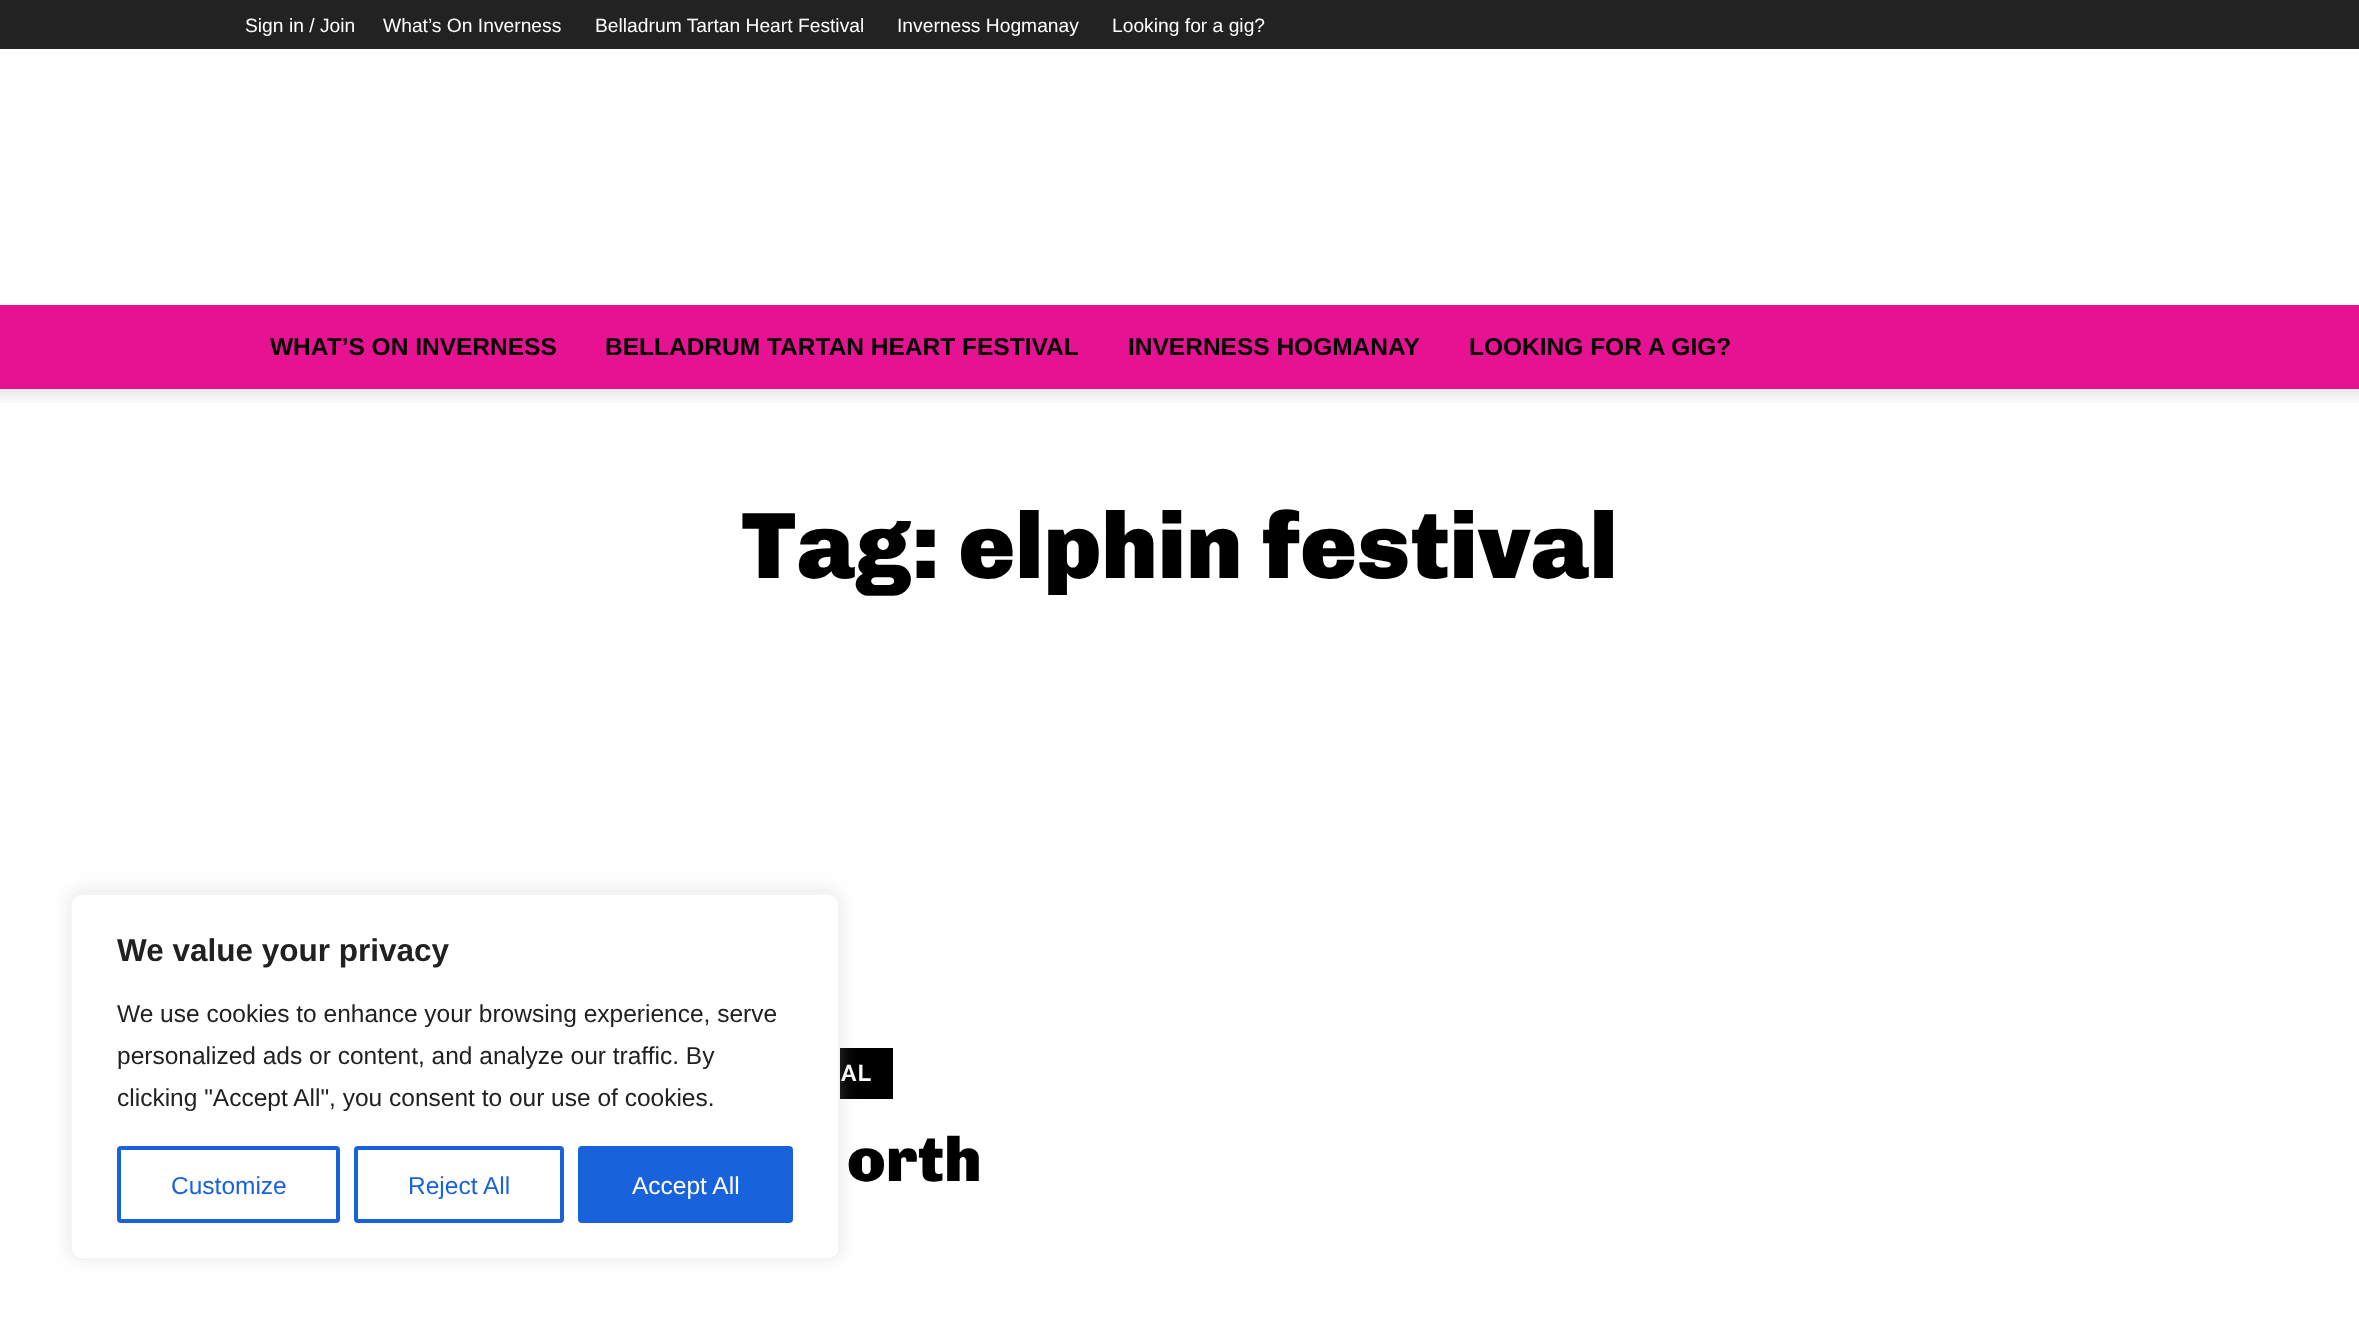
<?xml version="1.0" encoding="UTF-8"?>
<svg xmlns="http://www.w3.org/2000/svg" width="2359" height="1330">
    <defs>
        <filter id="blur1" x="-50%" y="-200%" width="200%" height="500%"><feGaussianBlur stdDeviation="9"/></filter>
    </defs>
    <rect width="100%" height="100%" fill="#FFFFFF"/>
    <rect x="0" y="0" width="2359" height="49" fill="#222222"/>
    <text x="245" y="32" font-family="Liberation Sans" font-size="19.25" fill="#FFFFFF">Sign in / Join</text>
    <text x="383" y="32" font-family="Liberation Sans" font-size="19.25" fill="#FFFFFF">What’s On Inverness</text>
    <text x="595" y="32" font-family="Liberation Sans" font-size="19.25" fill="#FFFFFF">Belladrum Tartan Heart Festival</text>
    <text x="897" y="32" font-family="Liberation Sans" font-size="19.25" fill="#FFFFFF">Inverness Hogmanay</text>
    <text x="1112" y="32" font-family="Liberation Sans" font-size="19.25" fill="#FFFFFF">Looking for a gig?</text>
    <rect x="0" y="305" width="2359" height="84" fill="#E71292"/>
    <text x="270" y="355" font-family="Liberation Sans" font-size="24.5" font-weight="700" fill="#000000">WHAT’S ON INVERNESS</text>
    <text x="605" y="355" font-family="Liberation Sans" font-size="24.5" font-weight="700" fill="#000000">BELLADRUM TARTAN HEART FESTIVAL</text>
    <text x="1128" y="355" font-family="Liberation Sans" font-size="24.5" font-weight="700" fill="#000000">INVERNESS HOGMANAY</text>
    <text x="1469" y="355" font-family="Liberation Sans" font-size="24.5" font-weight="700" fill="#000000">LOOKING FOR A GIG?</text>
    <image x="0" y="388" width="2359" height="15" href="img_01.png"/>
    <text x="741" y="578" font-family="Chivo" font-size="94.5" font-weight="900" fill="#000000">Tag: elphin festival</text>
    <rect x="840" y="1048" width="53" height="51" fill="#000000"/>
    <text x="841" y="1081" font-family="Raleway" font-size="23" font-weight="700" letter-spacing="1" fill="#FFFFFF">AL</text>
    <text x="847" y="1181" font-family="Chivo" font-size="63" font-weight="900" fill="#000000">orth</text>
    <rect x="70" y="891" width="770" height="367" rx="11" fill="#ACABAB" fill-opacity="0.3" filter="url(#blur1)"/>
    <rect x="71" y="894" width="768" height="365" rx="10" fill="#FFFFFF" stroke="#F4F4F4" stroke-width="2"/>
    <text x="117" y="961" font-family="Liberation Sans" font-size="31.5" font-weight="700" fill="#212121">We value your privacy</text>
    <text font-family="Liberation Sans" font-size="24.5" fill="#212121">
        <tspan x="117" y="1022">We use cookies to enhance your browsing experience, serve</tspan>
        <tspan x="117" y="1064">personalized ads or content, and analyze our traffic. By</tspan>
        <tspan x="117" y="1106">clicking "Accept All", you consent to our use of cookies.</tspan>
    </text>
    <rect x="119" y="1148" width="219" height="73" rx="2" fill="none" stroke="#1863DC" stroke-width="4"/>
    <text x="171" y="1194" font-family="Liberation Sans" font-size="24.5" fill="#1863DC">Customize</text>
    <rect x="356" y="1148" width="206" height="73" rx="2" fill="none" stroke="#1863DC" stroke-width="4"/>
    <text x="408" y="1194" font-family="Liberation Sans" font-size="24.5" fill="#1863DC">Reject All</text>
    <rect x="580" y="1148" width="211" height="73" rx="2" fill="#1863DC" stroke="#1863DC" stroke-width="4"/>
    <text x="632" y="1194" font-family="Liberation Sans" font-size="24.5" fill="#FFFFFF">Accept All</text>
</svg>
